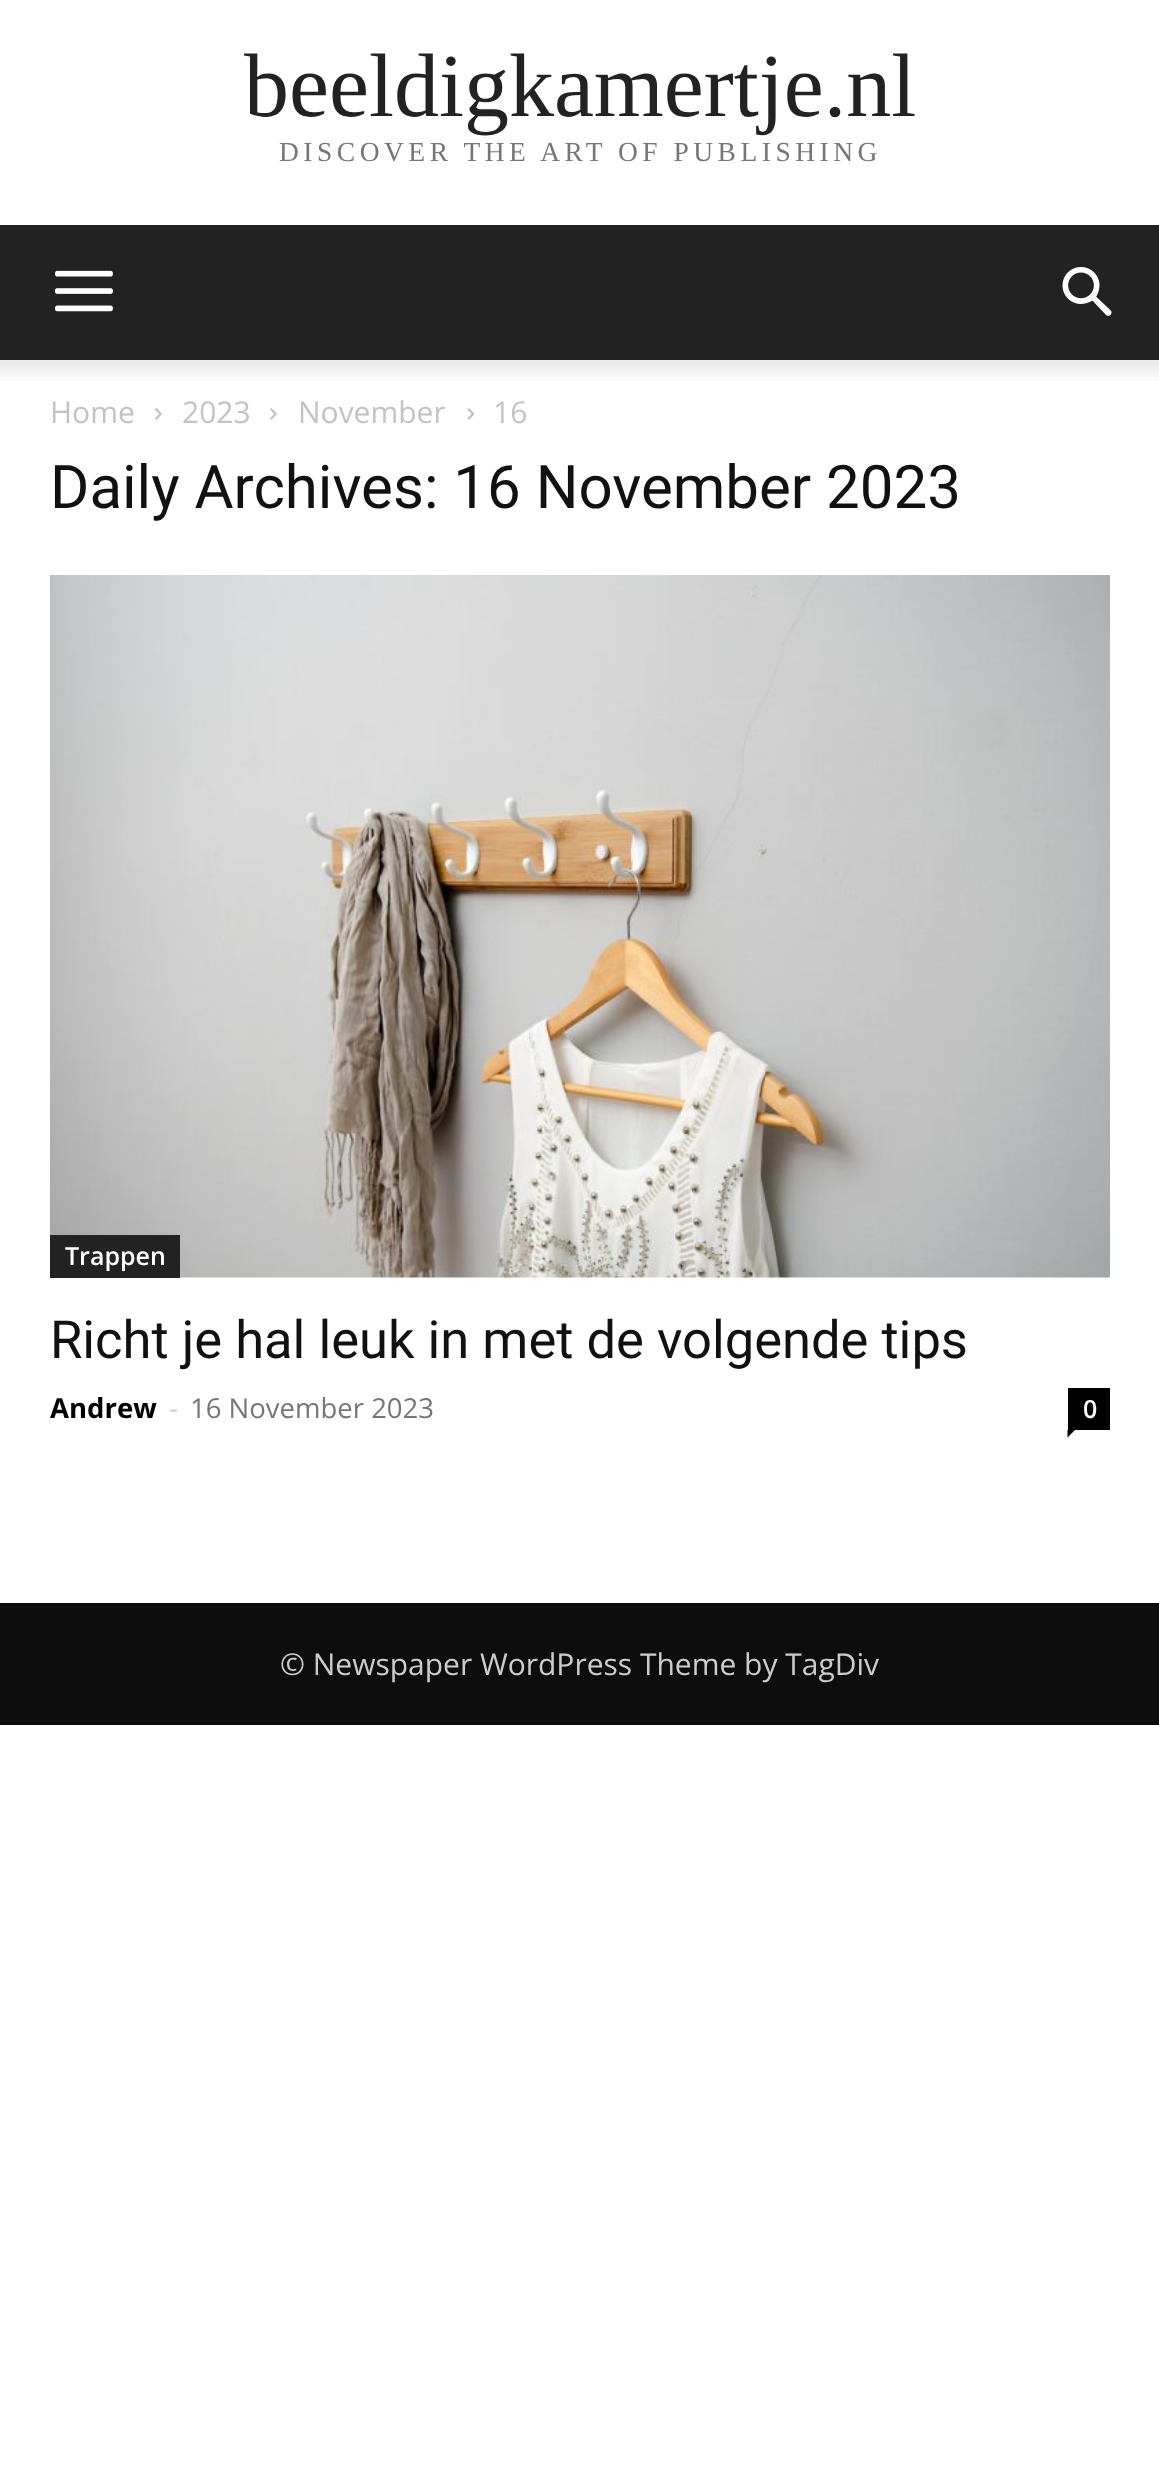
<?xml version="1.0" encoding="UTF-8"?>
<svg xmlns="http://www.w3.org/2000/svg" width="1159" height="2477">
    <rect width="100%" height="100%" fill="#FFFFFF"/>
    <text x="244" y="116" font-family="Liberation Serif" font-size="90" fill="#222222">beeldigkamertje.nl</text>
    <text x="279" y="161" font-family="Liberation Serif" font-size="27.5" letter-spacing="4.5" fill="#767676">DISCOVER THE ART OF PUBLISHING</text>
    <rect x="0" y="225" width="1159" height="135" fill="#222222"/>
    <image x="55" y="270" width="58" height="42" href="img_01.png"/>
    <image x="1062" y="267" width="50" height="49" href="img_02.png"/>
    <image x="0" y="360" width="1159" height="21" href="img_03.png"/>
    <text x="50" y="423" font-family="Open Sans" font-size="30" fill="#C3C3C3">Home</text>
    <image x="155" y="408" width="7" height="12" href="img_04.png"/>
    <text x="182" y="423" font-family="Open Sans" font-size="30" fill="#C3C3C3">2023</text>
    <image x="270" y="408" width="7" height="12" href="img_04.png"/>
    <text x="298" y="423" font-family="Open Sans" font-size="30" fill="#C3C3C3">November</text>
    <image x="467" y="408" width="8" height="12" href="img_05.png"/>
    <text x="493" y="423" font-family="Open Sans" font-size="30" fill="#C3C3C3">16</text>
    <text x="50" y="508" font-family="Roboto" font-size="60" fill="#111111">Daily Archives: 16 November 2023</text>
    <image x="50" y="575" width="1060" height="703" href="img_06.png"/>
    <rect x="50" y="1235" width="130" height="43" fill="#222222"/>
    <text x="65" y="1265" font-family="Open Sans" font-size="25" font-weight="600" fill="#FFFFFF">Trappen</text>
    <text x="50" y="1358" font-family="Roboto" font-size="52.5" fill="#111111">Richt je hal leuk in met de volgende tips</text>
    <text x="50" y="1418" font-family="Open Sans" font-size="27.5" font-weight="700" fill="#000000">Andrew</text>
    <text x="169" y="1418" font-family="Open Sans" font-size="27.5" fill="#CCCCCC">-</text>
    <text x="190" y="1418" font-family="Open Sans" font-size="27.5" fill="#767676">16 November 2023</text>
    <rect x="1068" y="1388" width="42" height="42" fill="#000000"/>
    <text x="1083" y="1418" font-family="Open Sans" font-size="25" font-weight="600" fill="#FFFFFF">0</text>
    <path d="M 1067.5 1430 H 1075 L 1067.5 1437.5 Z" fill="#000000"/>
    <rect x="0" y="1603" width="1159" height="122" fill="#0D0D0D"/>
    <text x="280" y="1675" font-family="Open Sans" font-size="30" fill="#CCCCCC">© Newspaper WordPress Theme by TagDiv</text>
</svg>
